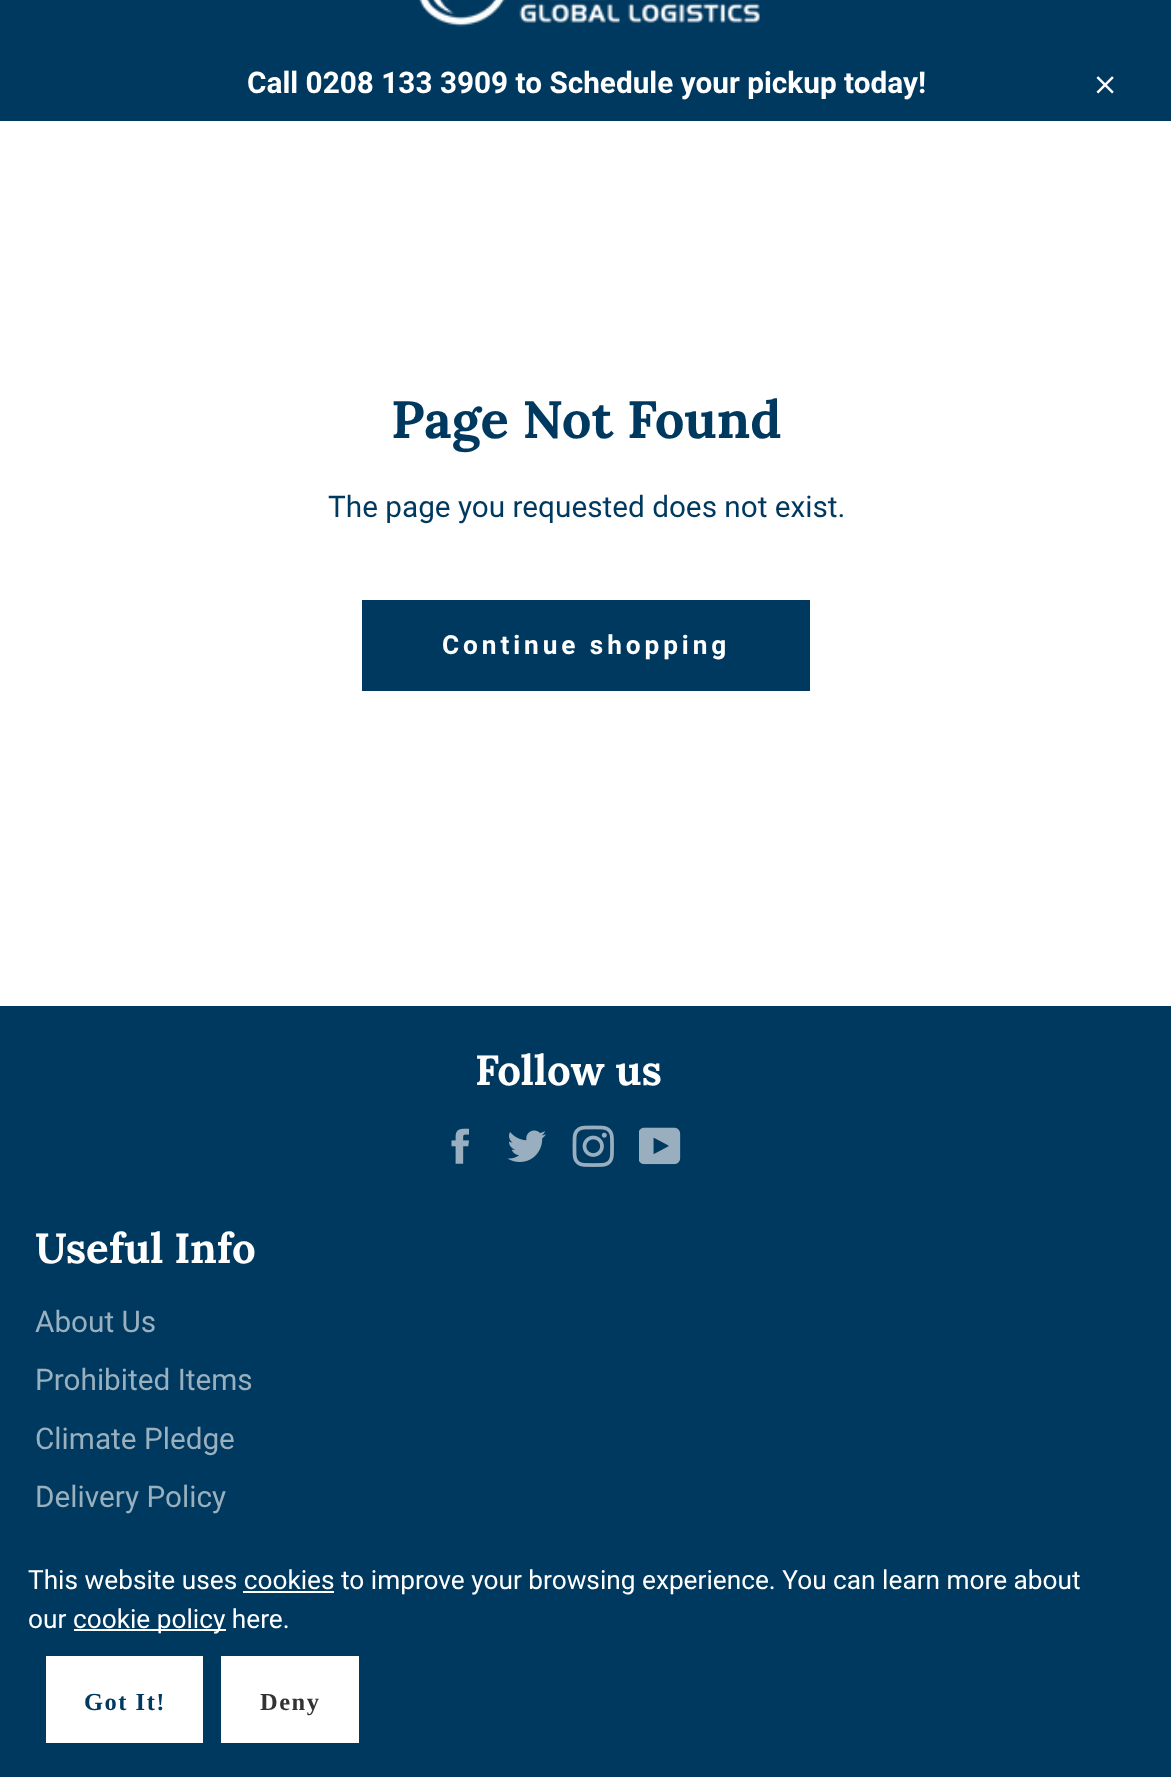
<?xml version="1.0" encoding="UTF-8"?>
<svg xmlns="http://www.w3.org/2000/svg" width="1171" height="1777">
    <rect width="100%" height="100%" fill="#FFFFFF"/>
    <rect x="0" y="0" width="1171" height="121" fill="#00395F"/>
    <image x="419" y="0" width="341" height="27" href="img_01.png"/>
    <text x="247" y="93" font-family="Roboto" font-size="29.75" font-weight="700" fill="#FFFFFF">Call 0208 133 3909 to Schedule your pickup today!</text>
    <image x="1096" y="76" width="18" height="18" href="img_02.png"/>
    <text x="391" y="438" font-family="Lora" font-size="52.5" font-weight="700" fill="#00395F">Page Not Found</text>
    <text x="328" y="517" font-family="Roboto" font-size="29.75" fill="#00395F">The page you requested does not exist.</text>
    <rect x="362" y="600" width="448" height="91" fill="#00395F"/>
    <text x="442" y="654" font-family="Roboto" font-size="26.25" font-weight="700" letter-spacing="3.9" fill="#FFFFFF">Continue shopping</text>
    <rect x="0" y="1006" width="1171" height="771" fill="#00395F"/>
    <text x="475" y="1085" font-family="Lora" font-size="42" font-weight="700" fill="#FFFFFF">Follow us</text>
    <image x="451" y="1128" width="18" height="36" href="img_03.png"/>
    <image x="507" y="1130" width="39" height="32" href="img_04.png"/>
    <image x="572" y="1125" width="42" height="42" href="img_05.png"/>
    <image x="639" y="1127" width="42" height="38" href="img_06.png"/>
    <text x="35" y="1263" font-family="Lora" font-size="42" font-weight="700" fill="#FFFFFF">Useful Info</text>
    <text font-family="Roboto" font-size="29.75" fill="#99B0BF">
        <tspan x="35" y="1332">About Us</tspan>
        <tspan x="35" y="1390">Prohibited Items</tspan>
        <tspan x="35" y="1449">Climate Pledge</tspan>
        <tspan x="35" y="1507">Delivery Policy</tspan>
    </text>
    <text x="28" y="1589" font-family="Roboto" font-size="26.25" fill="#FFFFFF">This website uses cookies to improve your browsing experience. You can learn more about</text>
    <rect x="243" y="1591" width="91" height="2" fill="#FFFFFF"/>
    <text x="28" y="1628" font-family="Roboto" font-size="26.25" fill="#FFFFFF">our</text>
    <rect x="74" y="1629" width="152" height="2" fill="#FFFFFF"/>
    <text x="73" y="1628" font-family="Roboto" font-size="26.25" fill="#FFFFFF">cookie policy here.</text>
    <rect x="46" y="1656" width="157" height="87" fill="#FFFFFF"/>
    <text x="84" y="1710" font-family="Liberation Serif" font-size="24.5" font-weight="700" letter-spacing="1.5" fill="#00395F">Got It!</text>
    <rect x="221" y="1656" width="138" height="87" fill="#FFFFFF"/>
    <text x="260" y="1710" font-family="Liberation Serif" font-size="24.5" font-weight="700" letter-spacing="1.5" fill="#333333">Deny</text>
</svg>
